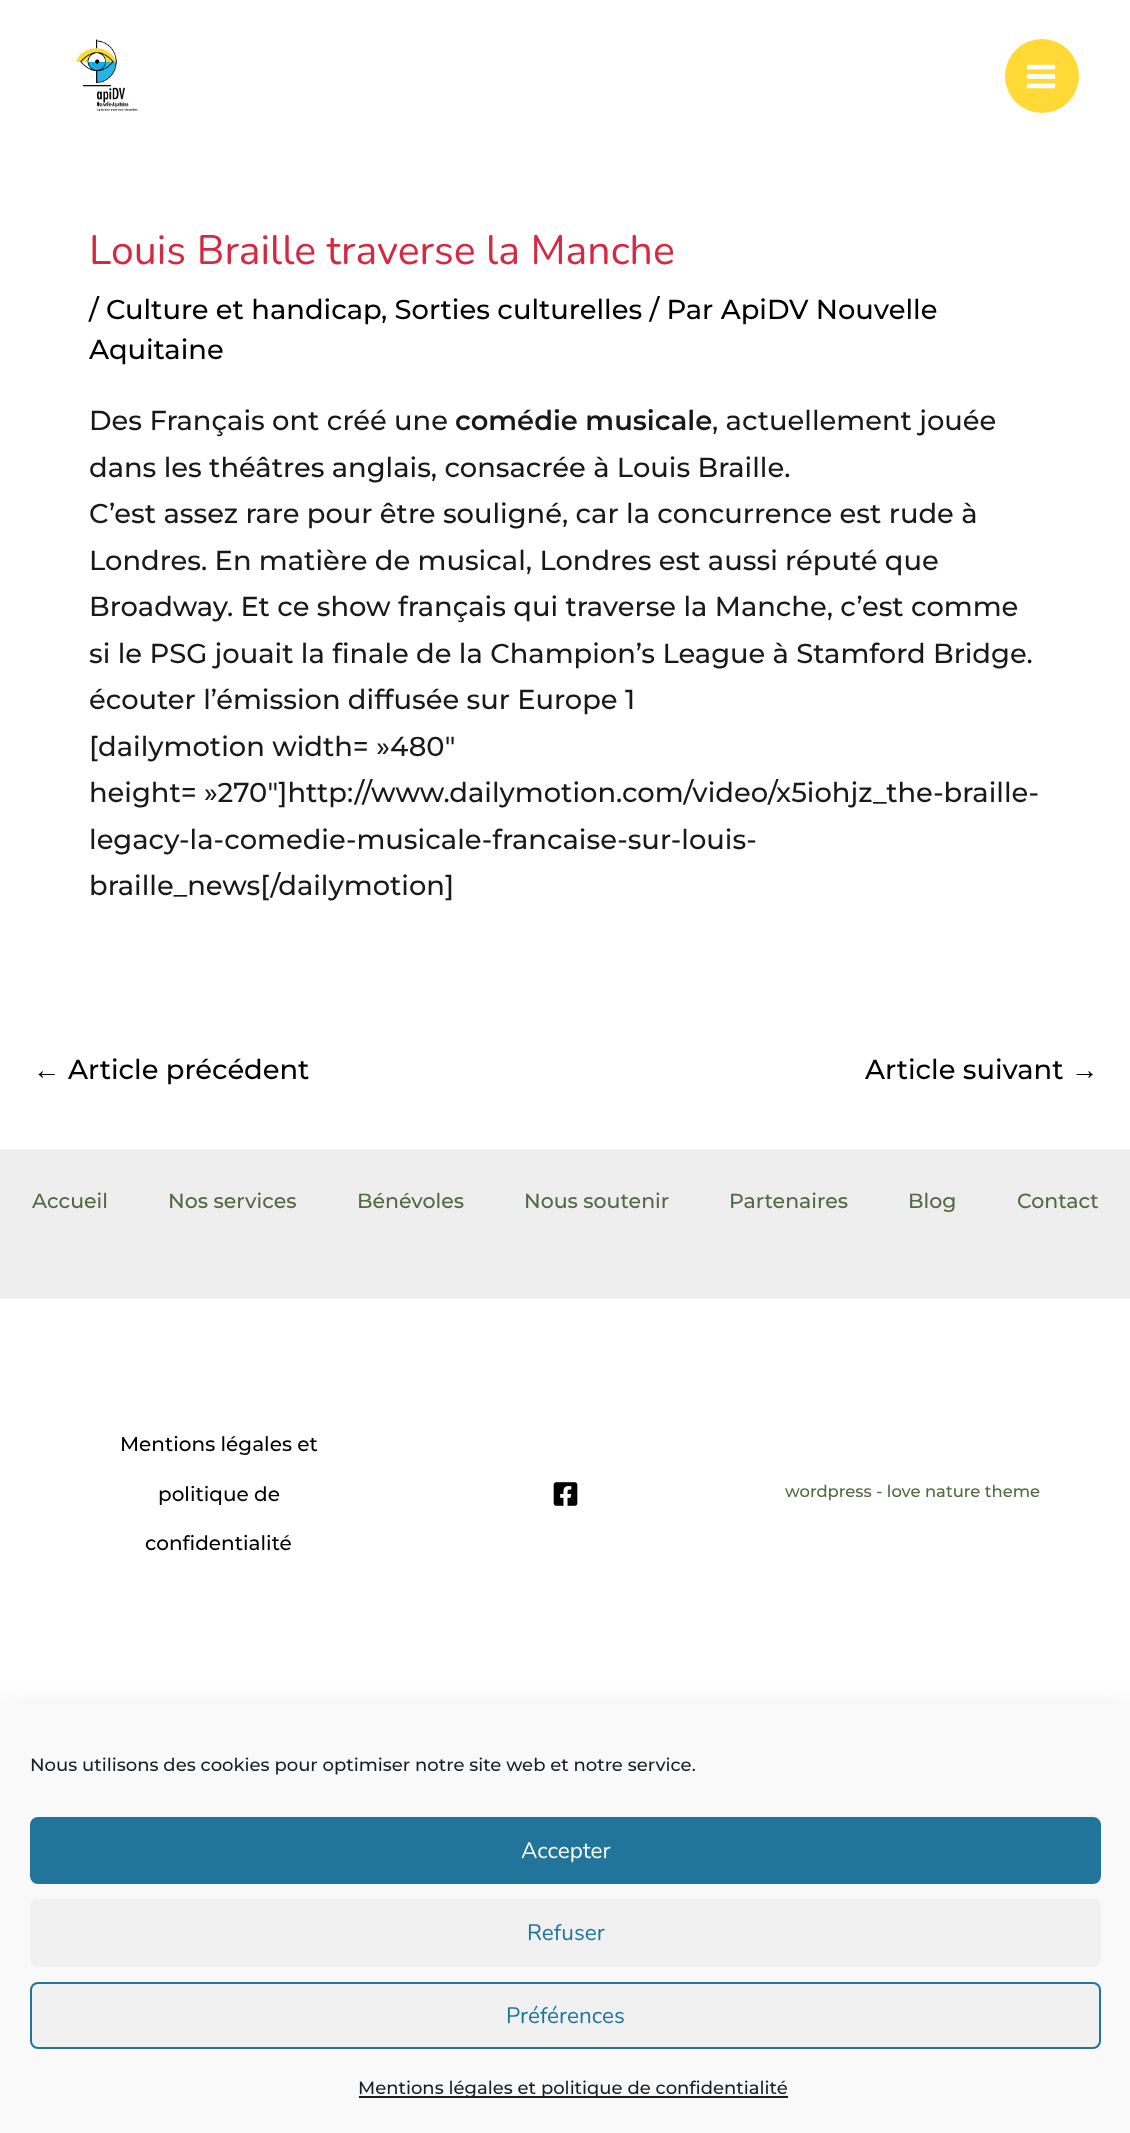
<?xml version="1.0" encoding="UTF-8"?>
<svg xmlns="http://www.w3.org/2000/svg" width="1130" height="2133">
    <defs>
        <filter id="blur1" x="-50%" y="-200%" width="200%" height="500%"><feGaussianBlur stdDeviation="15"/></filter>
    </defs>
    <rect width="100%" height="100%" fill="#FFFFFF"/>
    <image x="76" y="39" width="62" height="73" href="img_01.png"/>
    <circle cx="1042" cy="76" r="37" fill="#FFD936"/>
    <image x="1026" y="64" width="30" height="25" href="img_02.png"/>
    <text x="89" y="264" font-family="Nunito" font-size="41" fill="#D52941">Louis Braille traverse la Manche</text>
    <text x="89" y="319" font-family="Montserrat" font-size="27.35" font-weight="500" fill="#000000">/ Culture et handicap</text>
    <text x="381" y="319" font-family="Montserrat" font-size="27.35" font-weight="500" fill="#000000">, Sorties culturelles / Par ApiDV Nouvelle</text>
    <text x="89" y="359" font-family="Montserrat" font-size="27.35" font-weight="500" fill="#000000">Aquitaine</text>
    <text x="89" y="430" font-family="Montserrat" font-size="27.35" font-weight="500" fill="#191919">Des Français ont créé une</text>
    <text x="455" y="430" font-family="Montserrat" font-size="27.35" font-weight="600" fill="#191919">comédie musicale</text>
    <text x="712" y="430" font-family="Montserrat" font-size="27.35" font-weight="500" fill="#191919">, actuellement jouée</text>
    <text font-family="Montserrat" font-size="27.35" font-weight="500" fill="#191919">
        <tspan x="89" y="477">dans les théâtres anglais, consacrée à Louis Braille.</tspan>
        <tspan x="89" y="523">C’est assez rare pour être souligné, car la concurrence est rude à</tspan>
        <tspan x="89" y="570">Londres. En matière de musical, Londres est aussi réputé que</tspan>
        <tspan x="89" y="616">Broadway. Et ce show français qui traverse la Manche, c’est comme</tspan>
        <tspan x="89" y="663">si le PSG jouait la finale de la Champion’s League à Stamford Bridge.</tspan>
        <tspan x="89" y="709">écouter l’émission diffusée sur Europe 1</tspan>
        <tspan x="89" y="756">[dailymotion width= »480″</tspan>
        <tspan x="89" y="802">height= »270″]http://www.dailymotion.com/video/x5iohjz_the-braille-</tspan>
        <tspan x="89" y="849">legacy-la-comedie-musicale-francaise-sur-louis-</tspan>
        <tspan x="89" y="895">braille_news[/dailymotion]</tspan>
    </text>
    <text x="33" y="1079" font-family="Liberation Sans" font-size="27.35" fill="#000000">←</text>
    <text x="68" y="1079" font-family="Montserrat" font-size="27.35" font-weight="500" fill="#000000">Article précédent</text>
    <text x="865" y="1079" font-family="Montserrat" font-size="27.35" font-weight="500" fill="#000000">Article suivant</text>
    <text x="1071" y="1079" font-family="Liberation Sans" font-size="27.35" fill="#000000">→</text>
    <rect x="0" y="1149" width="1130" height="150" fill="#EEEEEE"/>
    <text x="32" y="1208" font-family="Montserrat" font-size="20.5" font-weight="500" fill="#536942">Accueil</text>
    <text x="168" y="1208" font-family="Montserrat" font-size="20.5" font-weight="500" fill="#536942">Nos services</text>
    <text x="357" y="1208" font-family="Montserrat" font-size="20.5" font-weight="500" fill="#536942">Bénévoles</text>
    <text x="524" y="1208" font-family="Montserrat" font-size="20.5" font-weight="500" fill="#536942">Nous soutenir</text>
    <text x="729" y="1208" font-family="Montserrat" font-size="20.5" font-weight="500" fill="#536942">Partenaires</text>
    <text x="908" y="1208" font-family="Montserrat" font-size="20.5" font-weight="500" fill="#536942">Blog</text>
    <text x="1017" y="1208" font-family="Montserrat" font-size="20.5" font-weight="500" fill="#536942">Contact</text>
    <text x="120" y="1451" font-family="Montserrat" font-size="20" font-weight="500" fill="#000000">Mentions légales et</text>
    <text x="158" y="1501" font-family="Montserrat" font-size="20" font-weight="500" fill="#000000">politique de</text>
    <text x="145" y="1550" font-family="Montserrat" font-size="20" font-weight="500" fill="#000000">confidentialité</text>
    <image x="553" y="1482" width="25" height="24" href="img_03.png"/>
    <text x="785" y="1497" font-family="Montserrat" font-size="16.4" font-weight="500" fill="#536942">wordpress - love nature theme</text>
    <rect x="0" y="1715" width="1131" height="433" fill="#000000" fill-opacity="0.19" filter="url(#blur1)"/>
    <rect x="0" y="1701" width="1130" height="432" fill="#F9F9F9"/>
    <text x="30" y="1771" font-family="Montserrat" font-size="18" font-weight="500" fill="#191E23">Nous utilisons des cookies pour optimiser notre site web et notre service.</text>
    <rect x="31" y="1818" width="1069" height="65" rx="7" fill="#21759B" stroke="#21759B" stroke-width="2"/>
    <text x="521" y="1858" font-family="Nunito" font-size="22.5" fill="#FFFFFF">Accepter</text>
    <rect x="30" y="1899" width="1071" height="68" rx="8" fill="#F1F1F1"/>
    <text x="527" y="1940" font-family="Nunito" font-size="22.5" fill="#21759B">Refuser</text>
    <rect x="31" y="1983" width="1069" height="65" rx="7" fill="#F1F1F1" stroke="#21759B" stroke-width="2"/>
    <text x="506" y="2023" font-family="Nunito" font-size="22.5" fill="#21759B">Préférences</text>
    <rect x="359" y="2096" width="429" height="2" fill="#191E23"/>
    <text x="358" y="2094" font-family="Montserrat" font-size="18" font-weight="500" fill="#191E23">Mentions légales et politique de confidentialité</text>
</svg>
